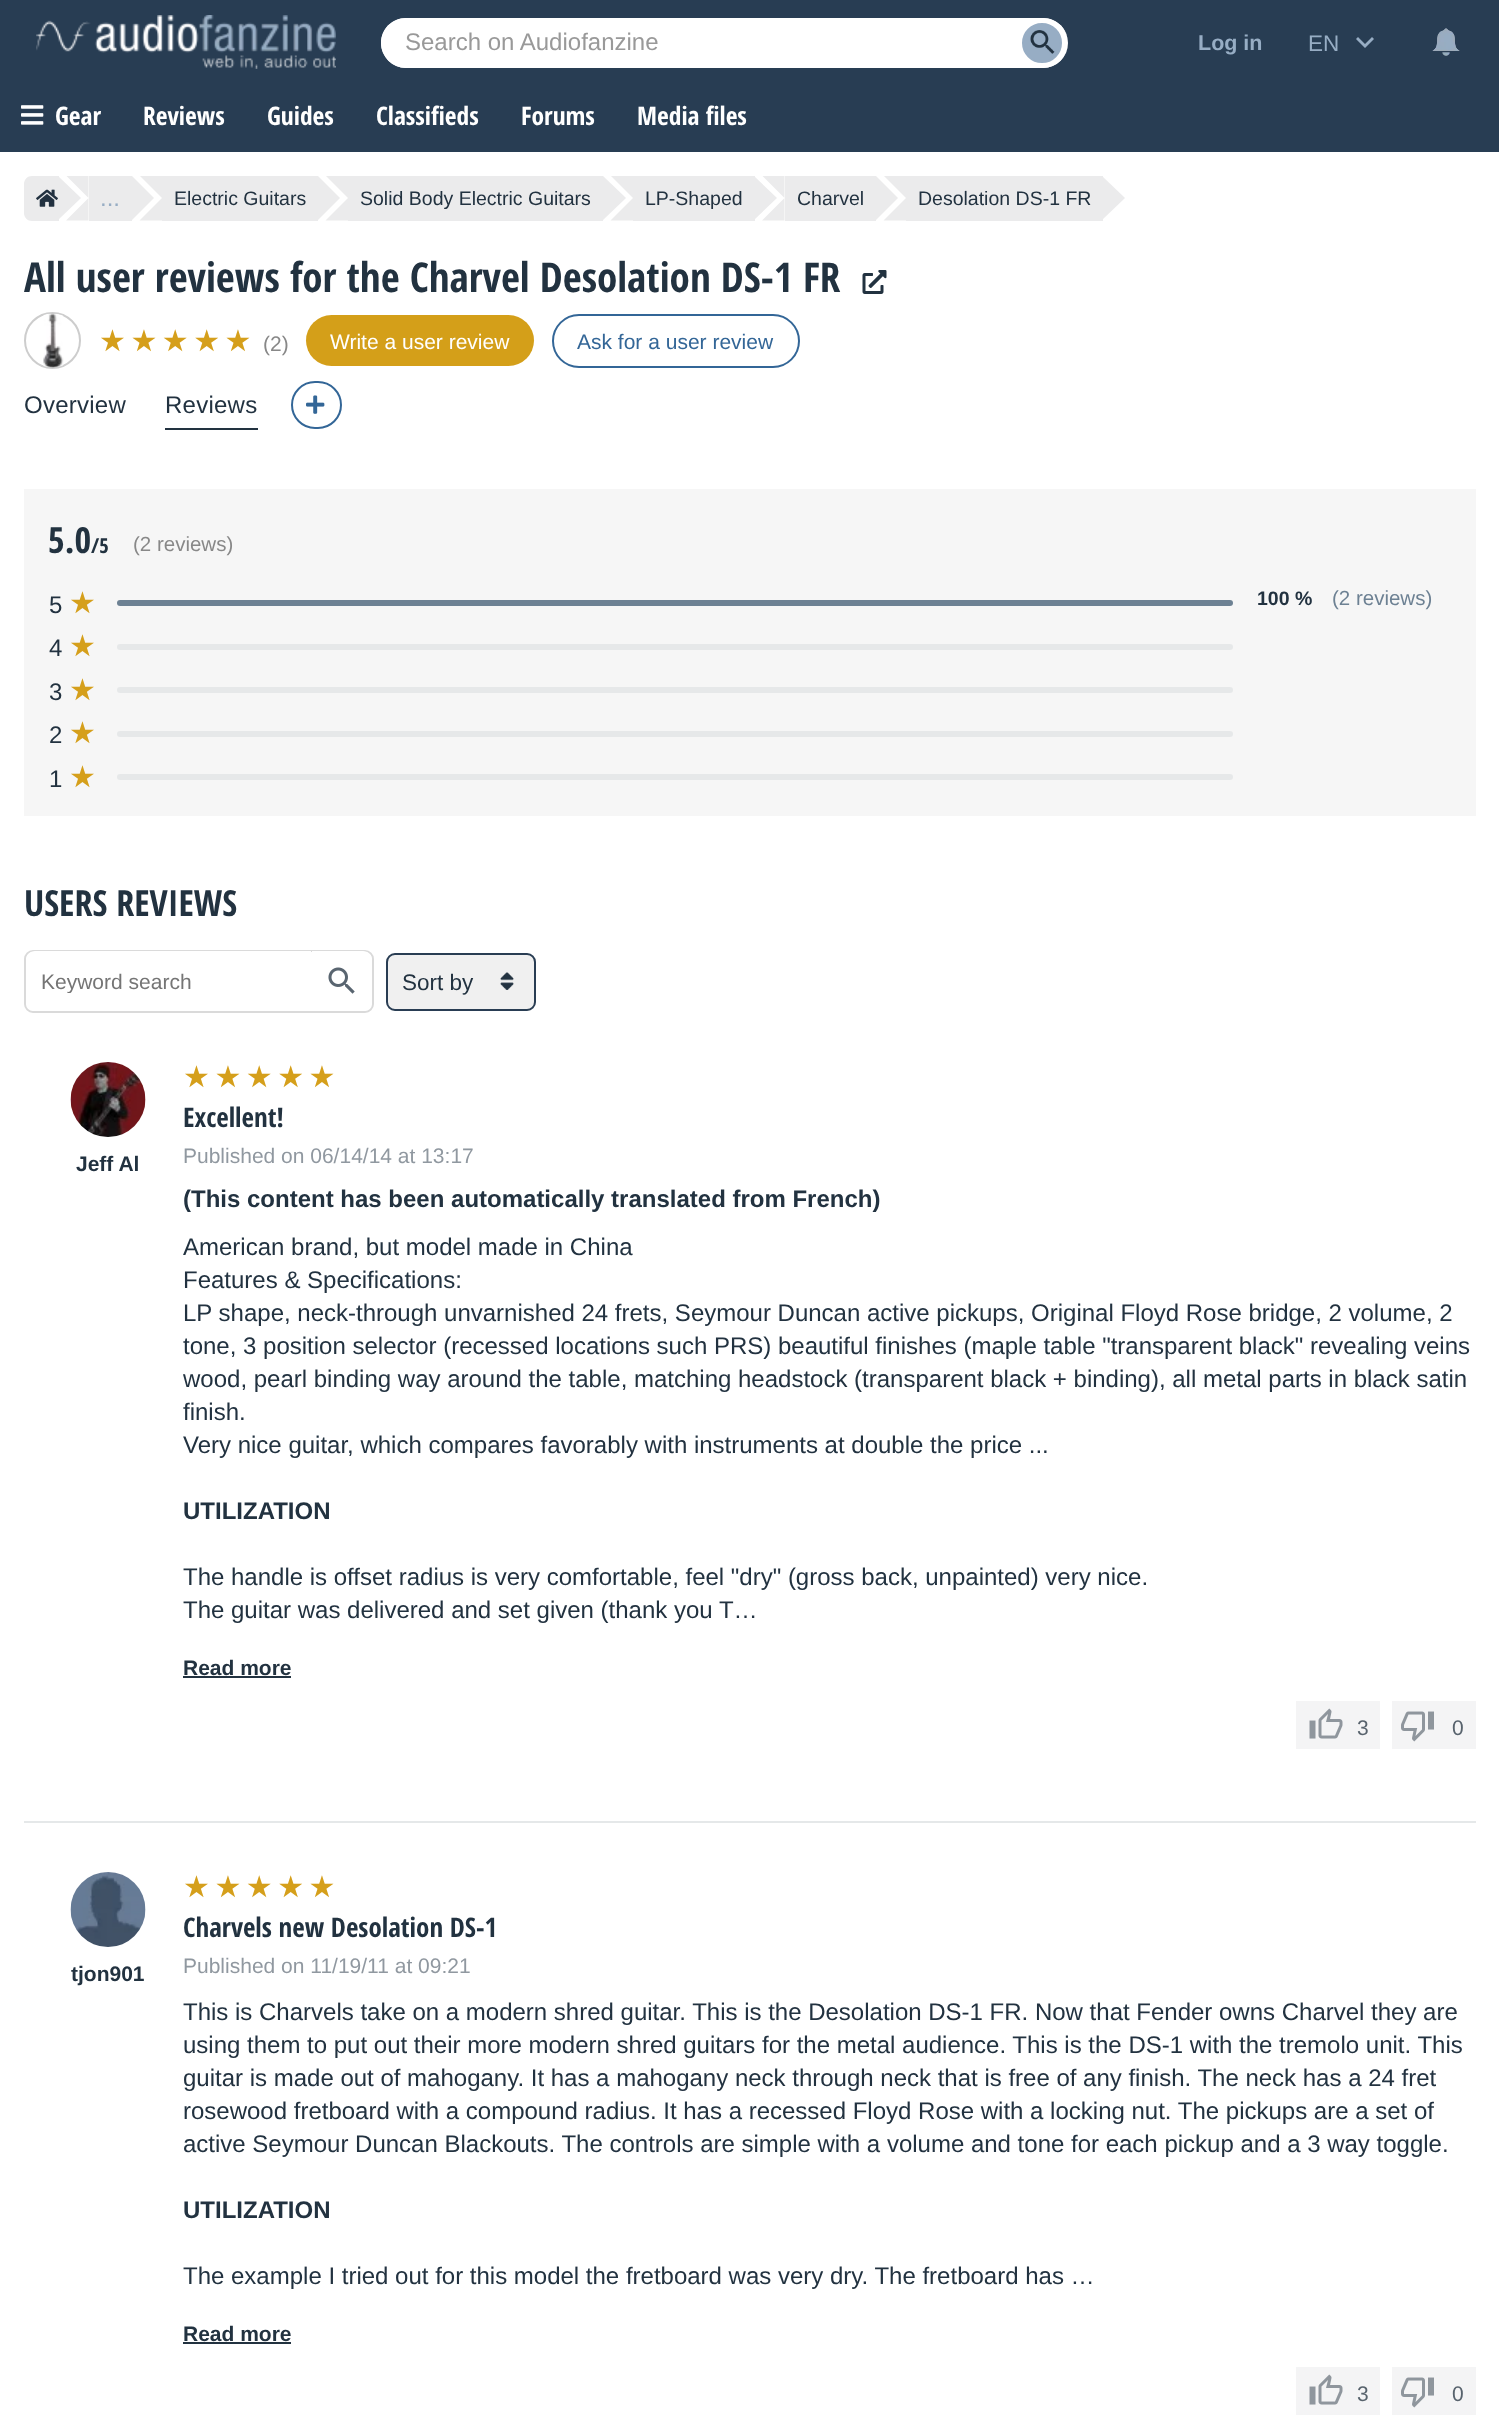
<?xml version="1.0" encoding="UTF-8"?>
<svg xmlns="http://www.w3.org/2000/svg" width="1499" height="2430">
    <defs>
        <clipPath id="clip1"><rect x="24" y="176" width="1452" height="69"/></clipPath>
        <linearGradient id="g1" gradientUnits="userSpaceOnUse" x1="99" y1="340" x2="256" y2="340"><stop offset="1" stop-color="#D59F1B"/><stop offset="1" stop-color="#E5E8E9"/></linearGradient>
        <linearGradient id="g2" gradientUnits="userSpaceOnUse" x1="69" y1="602" x2="100" y2="602"><stop offset="1" stop-color="#D59F1B"/><stop offset="1" stop-color="#E5E8E9"/></linearGradient>
        <linearGradient id="g3" gradientUnits="userSpaceOnUse" x1="69" y1="646" x2="100" y2="646"><stop offset="1" stop-color="#D59F1B"/><stop offset="1" stop-color="#E5E8E9"/></linearGradient>
        <linearGradient id="g4" gradientUnits="userSpaceOnUse" x1="69" y1="689" x2="100" y2="689"><stop offset="1" stop-color="#D59F1B"/><stop offset="1" stop-color="#E5E8E9"/></linearGradient>
        <linearGradient id="g5" gradientUnits="userSpaceOnUse" x1="69" y1="733" x2="100" y2="733"><stop offset="1" stop-color="#D59F1B"/><stop offset="1" stop-color="#E5E8E9"/></linearGradient>
        <linearGradient id="g6" gradientUnits="userSpaceOnUse" x1="69" y1="776" x2="100" y2="776"><stop offset="1" stop-color="#D59F1B"/><stop offset="1" stop-color="#E5E8E9"/></linearGradient>
        <clipPath id="clip2"><rect x="41" y="969" width="255" height="24"/></clipPath>
        <linearGradient id="g7" gradientUnits="userSpaceOnUse" x1="183" y1="1076" x2="340" y2="1076"><stop offset="1" stop-color="#D59F1B"/><stop offset="1" stop-color="#E5E8E9"/></linearGradient>
        <linearGradient id="g8" gradientUnits="userSpaceOnUse" x1="183" y1="1886" x2="340" y2="1886"><stop offset="1" stop-color="#D59F1B"/><stop offset="1" stop-color="#E5E8E9"/></linearGradient>
    </defs>
    <rect width="100%" height="100%" fill="#FFFFFF"/>
    <rect x="0" y="0" width="1499" height="152" fill="#283D53"/>
    <image x="36" y="15" width="300" height="54" href="img_01.png"/>
    <rect x="381" y="18" width="687" height="50" rx="25" fill="#FFFFFF"/>
    <path d="M 406 18 H 1043 C 1057 18 1068 29 1068 43 C 1068 56 1057 68 1043 68 H 406 C 392 68 381 56 381 43 C 381 29 392 18 406 18 Z M 406 20 H 1043 C 1057 20 1068 30 1068 43 C 1068 56 1057 66 1043 66 H 406 C 393 66 382 56 382 43 C 382 30 393 20 406 20 Z" fill="#FFFFFF" fill-rule="evenodd"/>
    <text x="405" y="50" font-family="Liberation Sans" font-size="24" fill="#999999">Search on Audiofanzine</text>
    <circle cx="1042" cy="43" r="19" fill="#97ADC4" stroke="#97ADC4" stroke-width="2"/>
    <image x="1030" y="30" width="25" height="24" href="img_02.png"/>
    <text x="1198" y="50" font-family="Liberation Sans" font-size="21.5" font-weight="700" fill="#97ADC4">Log in</text>
    <path d="M 1372 37 L 1365 44 L 1358 37 L 1356 39 L 1365 48 L 1374 39 Z" fill="#97ADC4"/>
    <text x="1308" y="51" font-family="Liberation Sans" font-size="22.5" fill="#97ADC4">EN</text>
    <image x="1432" y="28" width="28" height="28" href="img_03.png"/>
    <image x="21" y="105" width="23" height="20" href="img_04.png"/>
    <text x="55" y="125" font-family="Open Sans Condensed" font-size="25.5" font-weight="700" fill="#FFFFFF">Gear</text>
    <text x="143" y="125" font-family="Open Sans Condensed" font-size="25.5" font-weight="700" fill="#FFFFFF">Reviews</text>
    <text x="267" y="125" font-family="Open Sans Condensed" font-size="25.5" font-weight="700" fill="#FFFFFF">Guides</text>
    <text x="376" y="125" font-family="Open Sans Condensed" font-size="25.5" font-weight="700" fill="#FFFFFF">Classifieds</text>
    <text x="521" y="125" font-family="Open Sans Condensed" font-size="25.5" font-weight="700" fill="#FFFFFF">Forums</text>
    <text x="637" y="125" font-family="Open Sans Condensed" font-size="25.5" font-weight="700" fill="#FFFFFF">Media files</text>
    <path d="M 32 176 H 59 V 221 H 32 C 27.5 221 24 217.5 24 213 V 184 C 24 179.5 27.5 176 32 176 Z" fill="#EBEBEC"/>
    <image x="36" y="189" width="22" height="18" href="img_05.png"/>
    <path d="M 58 220 V 176 L 81 198 Z" fill="#EBEBEC"/>
    <rect x="89" y="176" width="43" height="45" fill="#EBEBEC"/>
    <g clip-path="url(#clip1)">
        <path d="M 66 175.5 H 88.5 V 198 Z" fill="#EBEBEC"/>
    </g>
    <path d="M 88.5 220.5 H 66 L 88.5 198 Z" fill="#EBEBEC"/>
    <text x="100" y="206" font-family="Liberation Sans" font-size="24" fill="#97ADC4">...</text>
    <path d="M 132 220 V 176 L 154 198 Z" fill="#EBEBEC"/>
    <rect x="162" y="176" width="156" height="45" fill="#EBEBEC"/>
    <g clip-path="url(#clip1)">
        <path d="M 139.5 175.5 H 162 V 198 Z" fill="#EBEBEC"/>
    </g>
    <path d="M 162 220.5 H 139.5 L 162 198 Z" fill="#EBEBEC"/>
    <text x="174" y="205" font-family="Liberation Sans" font-size="19.5" fill="#223240">Electric Guitars</text>
    <path d="M 318 220 V 176 L 340 198 Z" fill="#EBEBEC"/>
    <rect x="348" y="176" width="255" height="45" fill="#EBEBEC"/>
    <g clip-path="url(#clip1)">
        <path d="M 325.5 175.5 H 348 V 198 Z" fill="#EBEBEC"/>
    </g>
    <path d="M 348 220.5 H 325.5 L 348 198 Z" fill="#EBEBEC"/>
    <text x="360" y="205" font-family="Liberation Sans" font-size="19.5" fill="#223240">Solid Body Electric Guitars</text>
    <path d="M 603 220 V 176 L 626 198 Z" fill="#EBEBEC"/>
    <rect x="633" y="176" width="122" height="45" fill="#EBEBEC"/>
    <g clip-path="url(#clip1)">
        <path d="M 610.5 175.5 H 633 V 198 Z" fill="#EBEBEC"/>
    </g>
    <path d="M 633 220.5 H 610.5 L 633 198 Z" fill="#EBEBEC"/>
    <text x="645" y="205" font-family="Liberation Sans" font-size="19.5" fill="#223240">LP-Shaped</text>
    <path d="M 754 220 V 176 L 777 198 Z" fill="#EBEBEC"/>
    <rect x="785" y="176" width="91" height="45" fill="#EBEBEC"/>
    <g clip-path="url(#clip1)">
        <path d="M 762 175.5 H 784.5 V 198 Z" fill="#EBEBEC"/>
    </g>
    <path d="M 784.5 220.5 H 762 L 784.5 198 Z" fill="#EBEBEC"/>
    <text x="797" y="205" font-family="Liberation Sans" font-size="19.5" fill="#223240">Charvel</text>
    <path d="M 876 220 V 176 L 898 198 Z" fill="#EBEBEC"/>
    <rect x="906" y="176" width="197" height="45" fill="#EBEBEC"/>
    <g clip-path="url(#clip1)">
        <path d="M 883.5 175.5 H 906 V 198 Z" fill="#EBEBEC"/>
    </g>
    <path d="M 906 220.5 H 883.5 L 906 198 Z" fill="#EBEBEC"/>
    <text x="918" y="205" font-family="Liberation Sans" font-size="19.5" fill="#223240">Desolation DS-1 FR</text>
    <path d="M 1102 220 V 176 L 1125 198 Z" fill="#EBEBEC"/>
    <text x="24" y="292" font-family="Open Sans Condensed" font-size="41.1" font-weight="700" fill="#223240">All user reviews for the Charvel Desolation DS-1 FR</text>
    <image x="862" y="270" width="25" height="24" href="img_06.png"/>
    <circle cx="52.5" cy="340.5" r="27.5" fill="none" stroke="#CDCDCD" stroke-width="2"/>
    <image x="43" y="313" width="21" height="55" href="img_07.png"/>
    <text x="99" y="351" font-family="DejaVu Sans" font-size="30" letter-spacing="4.5" fill="url(#g1)">★★★★★</text>
    <text x="263" y="351" font-family="Liberation Sans" font-size="21" fill="#888888">(2)</text>
    <rect x="306" y="315" width="228" height="51" rx="25.5" fill="#D49F19"/>
    <text x="330" y="349" font-family="Liberation Sans" font-size="21" fill="#FFFFFF">Write a user review</text>
    <rect x="553" y="315" width="246" height="52" rx="26" fill="none" stroke="#336697" stroke-width="2"/>
    <text x="577" y="349" font-family="Liberation Sans" font-size="21" fill="#336697">Ask for a user review</text>
    <text x="24" y="413" font-family="Liberation Sans" font-size="24" letter-spacing="0.25" fill="#223240">Overview</text>
    <rect x="165" y="428" width="93" height="2" fill="#223240"/>
    <text x="165" y="413" font-family="Liberation Sans" font-size="24" letter-spacing="0.25" fill="#223240">Reviews</text>
    <rect x="292" y="382" width="49" height="46" rx="23" fill="none" stroke="#336697" stroke-width="2"/>
    <image x="306" y="395" width="19" height="19" href="img_08.png"/>
    <rect x="24" y="489" width="1452" height="327" fill="#F6F6F6"/>
    <text x="48" y="553" font-family="Open Sans Condensed" font-size="36" font-weight="700" fill="#223240">5.0</text>
    <text x="91" y="553" font-family="Open Sans Condensed" font-size="20.5" font-weight="700" fill="#223240">/5</text>
    <text x="133" y="551" font-family="Liberation Sans" font-size="20.5" fill="#888888">(2 reviews)</text>
    <text x="49" y="613" font-family="Liberation Sans" font-size="24" fill="#223240">5</text>
    <text x="69" y="613" font-family="DejaVu Sans" font-size="30" letter-spacing="4.5" fill="url(#g2)">★</text>
    <rect x="117" y="600" width="1116" height="6" rx="3" fill="#6D8193"/>
    <text x="1257" y="605" font-family="Liberation Sans" font-size="19.5" font-weight="700" fill="#223240">100 %</text>
    <text x="1332" y="605" font-family="Liberation Sans" font-size="20.5" fill="#6D8193">(2 reviews)</text>
    <text x="49" y="656" font-family="Liberation Sans" font-size="24" fill="#223240">4</text>
    <text x="69" y="656" font-family="DejaVu Sans" font-size="30" letter-spacing="4.5" fill="url(#g3)">★</text>
    <rect x="117" y="644" width="1116" height="6" rx="3" fill="#E6E8E9"/>
    <text x="49" y="700" font-family="Liberation Sans" font-size="24" fill="#223240">3</text>
    <text x="69" y="700" font-family="DejaVu Sans" font-size="30" letter-spacing="4.5" fill="url(#g4)">★</text>
    <rect x="117" y="687" width="1116" height="6" rx="3" fill="#E6E8E9"/>
    <text x="49" y="743" font-family="Liberation Sans" font-size="24" fill="#223240">2</text>
    <text x="69" y="743" font-family="DejaVu Sans" font-size="30" letter-spacing="4.5" fill="url(#g5)">★</text>
    <rect x="117" y="731" width="1116" height="6" rx="3" fill="#E6E8E9"/>
    <text x="49" y="787" font-family="Liberation Sans" font-size="24" fill="#223240">1</text>
    <text x="69" y="787" font-family="DejaVu Sans" font-size="30" letter-spacing="4.5" fill="url(#g6)">★</text>
    <rect x="117" y="774" width="1116" height="6" rx="3" fill="#E6E8E9"/>
    <text x="24" y="916" font-family="Open Sans Condensed" font-size="36" font-weight="700" fill="#223240">USERS REVIEWS</text>
    <rect x="25" y="951" width="348" height="61" rx="8" fill="none" stroke="#DADADA" stroke-width="2"/>
    <path d="M 35 951 H 311 V 1011 H 35 C 30 1011 26 1007 26 1002 V 960 C 26 955 30 951 35 951 Z" fill="#FFFFFF"/>
    <g clip-path="url(#clip2)">
        <text x="41" y="989" font-family="Liberation Sans" font-size="21" fill="#757575">Keyword search</text>
    </g>
    <path d="M 312 951 H 363 C 368 951 372 955 372 960 V 1002 C 372 1007 368 1011 363 1011 H 312 Z" fill="#FFFFFF"/>
    <image x="328" y="967" width="27" height="27" href="img_09.png"/>
    <rect x="386" y="953" width="150" height="58" rx="9" fill="#F0F0F0"/>
    <image x="500" y="972" width="14" height="18" href="img_10.png"/>
    <rect x="387" y="954" width="148" height="56" rx="8" fill="none" stroke="#293D53" stroke-width="2"/>
    <text x="402" y="990" font-family="Liberation Sans" font-size="22.5" fill="#223240">Sort by</text>
    <rect x="24" y="1821" width="1452" height="2" fill="#E5E8E9"/>
    <image x="70" y="1062" width="76" height="75" href="img_11.png"/>
    <text x="76" y="1171" font-family="Liberation Sans" font-size="21" font-weight="700" fill="#223240">Jeff Al</text>
    <text x="183" y="1087" font-family="DejaVu Sans" font-size="30" letter-spacing="4.5" fill="url(#g7)">★★★★★</text>
    <text x="183" y="1127" font-family="Open Sans Condensed" font-size="27" font-weight="700" fill="#223240">Excellent!</text>
    <text x="183" y="1163" font-family="Liberation Sans" font-size="21" fill="#9098A0">Published on 06/14/14 at 13:17</text>
    <text x="183" y="1207" font-family="Liberation Sans" font-size="24" font-weight="700" fill="#223240">(This content has been automatically translated from French)</text>
    <text font-family="Liberation Sans" font-size="24" fill="#223240">
        <tspan x="183" y="1255">American brand, but model made in China</tspan>
        <tspan x="183" y="1288">Features &amp; Specifications:</tspan>
        <tspan x="183" y="1321">LP shape, neck-through unvarnished 24 frets, Seymour Duncan active pickups, Original Floyd Rose bridge, 2 volume, 2</tspan>
        <tspan x="183" y="1354">tone, 3 position selector (recessed locations such PRS) beautiful finishes (maple table "transparent black" revealing veins</tspan>
        <tspan x="183" y="1387">wood, pearl binding way around the table, matching headstock (transparent black + binding), all metal parts in black satin</tspan>
        <tspan x="183" y="1420">finish.</tspan>
        <tspan x="183" y="1453">Very nice guitar, which compares favorably with instruments at double the price ...</tspan>
    </text>
    <text x="183" y="1519" font-family="Liberation Sans" font-size="24" font-weight="700" fill="#223240">UTILIZATION</text>
    <text font-family="Liberation Sans" font-size="24" fill="#223240">
        <tspan x="183" y="1585">The handle is offset radius is very comfortable, feel "dry" (gross back, unpainted) very nice.</tspan>
        <tspan x="183" y="1618">The guitar was delivered and set given (thank you T…</tspan>
    </text>
    <text x="183" y="1675" font-family="Liberation Sans" font-size="21" font-weight="700" fill="#223240">Read more</text>
    <rect x="183" y="1676" width="108" height="2" fill="#223240"/>
    <rect x="1296" y="1701" width="84" height="48" fill="#F4F4F5"/>
    <image x="1309" y="1708" width="34" height="31" href="img_12.png"/>
    <text x="1357" y="1735" font-family="Liberation Sans" font-size="21" fill="#58636D">3</text>
    <rect x="1392" y="1701" width="84" height="48" fill="#F4F4F5"/>
    <image x="1401" y="1711" width="33" height="31" href="img_13.png"/>
    <text x="1452" y="1735" font-family="Liberation Sans" font-size="21" fill="#58636D">0</text>
    <image x="70" y="1872" width="76" height="75" href="img_14.png"/>
    <text x="71" y="1981" font-family="Liberation Sans" font-size="21" font-weight="700" fill="#223240">tjon901</text>
    <text x="183" y="1897" font-family="DejaVu Sans" font-size="30" letter-spacing="4.5" fill="url(#g8)">★★★★★</text>
    <text x="183" y="1937" font-family="Open Sans Condensed" font-size="27" font-weight="700" fill="#223240">Charvels new Desolation DS-1</text>
    <text x="183" y="1973" font-family="Liberation Sans" font-size="21" fill="#9098A0">Published on 11/19/11 at 09:21</text>
    <text font-family="Liberation Sans" font-size="24" fill="#223240">
        <tspan x="183" y="2020">This is Charvels take on a modern shred guitar. This is the Desolation DS-1 FR. Now that Fender owns Charvel they are</tspan>
        <tspan x="183" y="2053">using them to put out their more modern shred guitars for the metal audience. This is the DS-1 with the tremolo unit. This</tspan>
        <tspan x="183" y="2086">guitar is made out of mahogany. It has a mahogany neck through neck that is free of any finish. The neck has a 24 fret</tspan>
        <tspan x="183" y="2119">rosewood fretboard with a compound radius. It has a recessed Floyd Rose with a locking nut. The pickups are a set of</tspan>
        <tspan x="183" y="2152">active Seymour Duncan Blackouts. The controls are simple with a volume and tone for each pickup and a 3 way toggle.</tspan>
    </text>
    <text x="183" y="2218" font-family="Liberation Sans" font-size="24" font-weight="700" fill="#223240">UTILIZATION</text>
    <text x="183" y="2284" font-family="Liberation Sans" font-size="24" fill="#223240">The example I tried out for this model the fretboard was very dry. The fretboard has …</text>
    <text x="183" y="2341" font-family="Liberation Sans" font-size="21" font-weight="700" fill="#223240">Read more</text>
    <rect x="183" y="2342" width="108" height="2" fill="#223240"/>
    <rect x="1296" y="2367" width="84" height="48" fill="#F4F4F5"/>
    <image x="1309" y="2374" width="34" height="31" href="img_12.png"/>
    <text x="1357" y="2401" font-family="Liberation Sans" font-size="21" fill="#58636D">3</text>
    <rect x="1392" y="2367" width="84" height="48" fill="#F4F4F5"/>
    <image x="1401" y="2377" width="33" height="31" href="img_13.png"/>
    <text x="1452" y="2401" font-family="Liberation Sans" font-size="21" fill="#58636D">0</text>
</svg>
